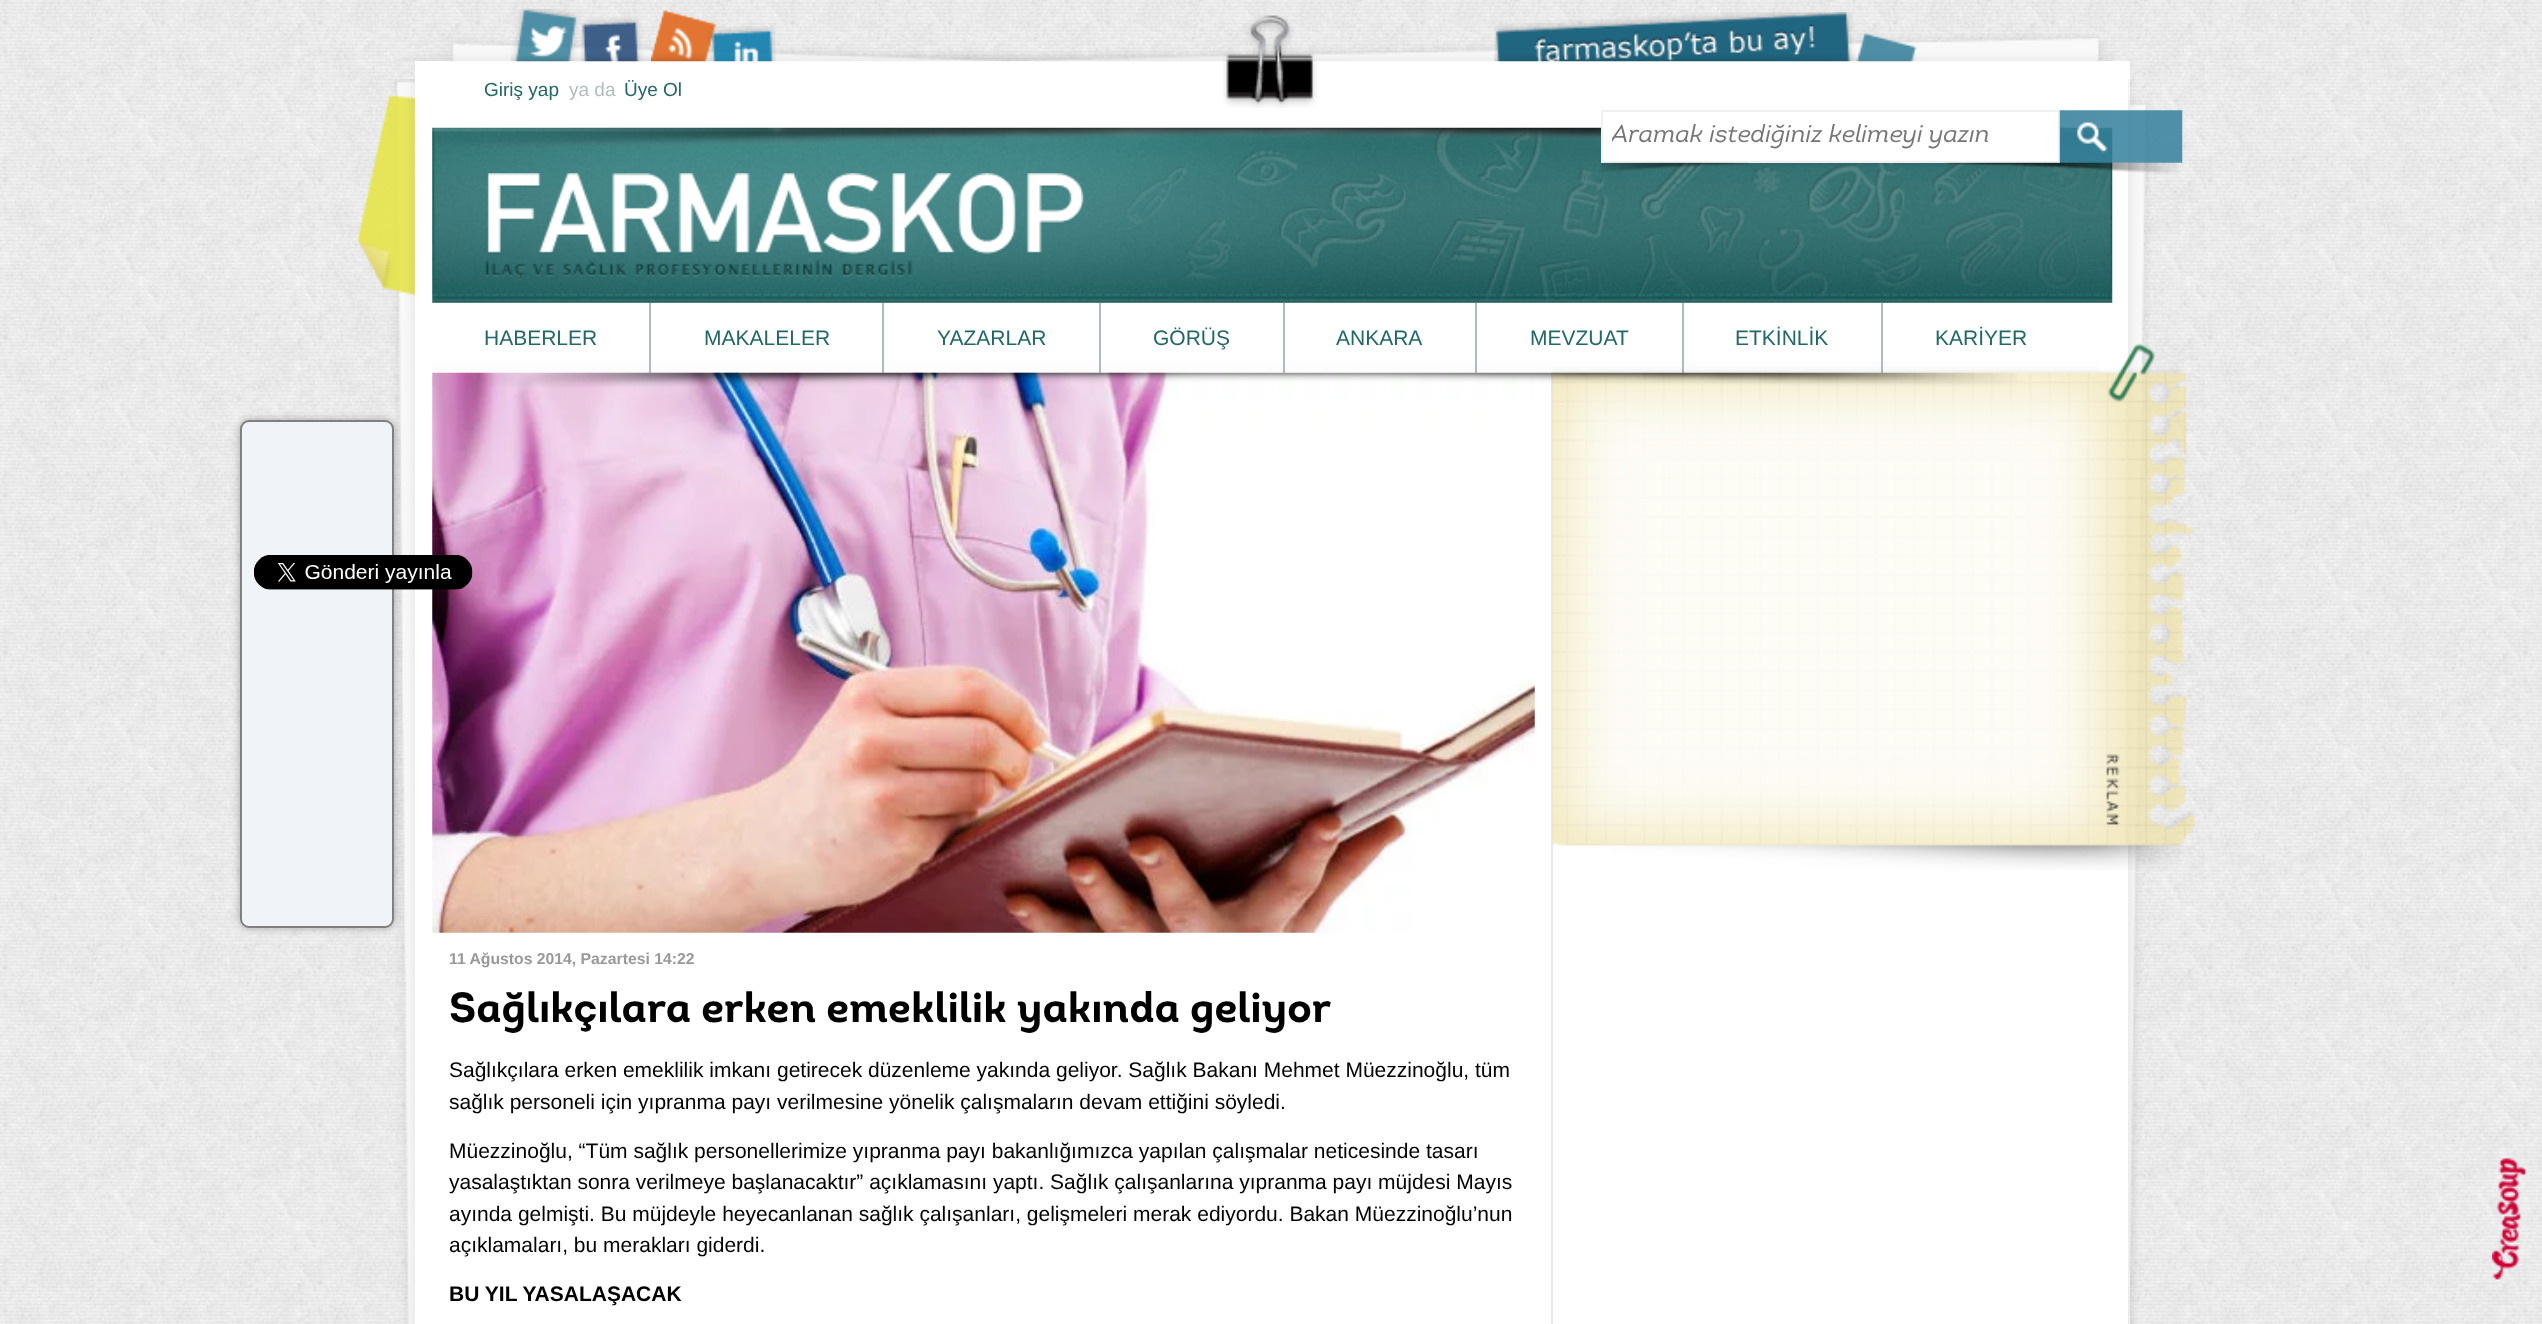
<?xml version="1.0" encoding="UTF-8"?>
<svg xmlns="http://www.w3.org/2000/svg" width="2542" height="1324">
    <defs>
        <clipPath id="clip1"><rect x="1612" y="123" width="437" height="26"/></clipPath>
        <linearGradient id="g1" gradientUnits="userSpaceOnUse" x1="542" y1="303" x2="542" y2="373"><stop offset="0" stop-color="#FFFFFF"/><stop offset="1" stop-color="#FCFCFC"/></linearGradient>
        <linearGradient id="g2" gradientUnits="userSpaceOnUse" x1="767" y1="303" x2="767" y2="373"><stop offset="0" stop-color="#FFFFFF"/><stop offset="1" stop-color="#FCFCFC"/></linearGradient>
        <linearGradient id="g3" gradientUnits="userSpaceOnUse" x1="992" y1="303" x2="992" y2="373"><stop offset="0" stop-color="#FFFFFF"/><stop offset="1" stop-color="#FCFCFC"/></linearGradient>
        <linearGradient id="g4" gradientUnits="userSpaceOnUse" x1="1193" y1="303" x2="1193" y2="373"><stop offset="0" stop-color="#FFFFFF"/><stop offset="1" stop-color="#FCFCFC"/></linearGradient>
        <linearGradient id="g5" gradientUnits="userSpaceOnUse" x1="1381" y1="303" x2="1381" y2="373"><stop offset="0" stop-color="#FFFFFF"/><stop offset="1" stop-color="#FCFCFC"/></linearGradient>
        <linearGradient id="g6" gradientUnits="userSpaceOnUse" x1="1580" y1="303" x2="1580" y2="373"><stop offset="0" stop-color="#FFFFFF"/><stop offset="1" stop-color="#FCFCFC"/></linearGradient>
        <linearGradient id="g7" gradientUnits="userSpaceOnUse" x1="1783" y1="303" x2="1783" y2="373"><stop offset="0" stop-color="#FFFFFF"/><stop offset="1" stop-color="#FCFCFC"/></linearGradient>
        <linearGradient id="g8" gradientUnits="userSpaceOnUse" x1="1991" y1="303" x2="1991" y2="373"><stop offset="0" stop-color="#FFFFFF"/><stop offset="1" stop-color="#FCFCFC"/></linearGradient>
        <filter id="blur1" x="-50%" y="-200%" width="200%" height="500%"><feGaussianBlur stdDeviation="4.5"/></filter>
    </defs>
    <rect width="100%" height="100%" fill="#FFFFFF"/>
    <image x="0" y="0" width="2542" height="1324" href="img_01.png"/>
    <rect x="415" y="61" width="1715" height="1263" fill="#FFFFFF"/>
    <image x="401" y="34" width="1714" height="28" href="img_08.png"/>
    <image x="511" y="8" width="70" height="54" href="img_02.png"/>
    <image x="581" y="17" width="70" height="45" href="img_03.png"/>
    <image x="651" y="10" width="70" height="52" href="img_04.png"/>
    <image x="721" y="26" width="55" height="36" href="img_05.png"/>
    <image x="1223" y="15" width="94" height="93" href="img_06.png"/>
    <image x="1494" y="12" width="423" height="50" href="img_07.png"/>
    <image x="357" y="79" width="58" height="1245" href="img_09.png"/>
    <text x="484" y="96" font-family="Liberation Sans" font-size="19" fill="#236767">Giriş yap</text>
    <text x="569" y="96" font-family="Liberation Sans" font-size="19" fill="#B2BCC0">ya da</text>
    <text x="624" y="96" font-family="Liberation Sans" font-size="19" fill="#236767">Üye Ol</text>
    <image x="432" y="127" width="1681" height="176" href="img_10.png"/>
    <rect x="1603" y="127" width="455" height="34" fill="#FFFFFF"/>
    <rect x="1602" y="111" width="457" height="51" fill="none" stroke="#F1F1F1" stroke-width="2"/>
    <g clip-path="url(#clip1)">
        <text x="1611" y="142" font-family="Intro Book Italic" font-size="24.5" font-style="italic" fill="#757575">Aramak istediğiniz kelimeyi yazın</text>
    </g>
    <image x="2128" y="79" width="22" height="1245" href="img_14.png"/>
    <image x="2059" y="110" width="124" height="53" href="img_11.png"/>
    <image x="1601" y="162" width="578" height="12" href="img_12.png"/>
    <image x="485" y="173" width="599" height="107" href="img_13.png"/>
    <rect x="432" y="361" width="217" height="12" fill="url(#g1)"/>
    <rect x="649" y="303" width="2" height="70" fill="#B0BBBF"/>
    <text x="484" y="345" font-family="Liberation Sans" font-size="21" fill="#236767">HABERLER</text>
    <rect x="651" y="361" width="231" height="12" fill="url(#g2)"/>
    <rect x="882" y="303" width="2" height="70" fill="#B0BBBF"/>
    <text x="704" y="345" font-family="Liberation Sans" font-size="21" fill="#236767">MAKALELER</text>
    <rect x="884" y="361" width="215" height="12" fill="url(#g3)"/>
    <rect x="1099" y="303" width="2" height="70" fill="#B0BBBF"/>
    <text x="937" y="345" font-family="Liberation Sans" font-size="21" fill="#236767">YAZARLAR</text>
    <rect x="1101" y="361" width="182" height="12" fill="url(#g4)"/>
    <rect x="1283" y="303" width="2" height="70" fill="#B0BBBF"/>
    <text x="1153" y="345" font-family="Liberation Sans" font-size="21" fill="#236767">GÖRÜŞ</text>
    <rect x="1285" y="361" width="190" height="12" fill="url(#g5)"/>
    <rect x="1475" y="303" width="2" height="70" fill="#B0BBBF"/>
    <text x="1336" y="345" font-family="Liberation Sans" font-size="21" fill="#236767">ANKARA</text>
    <rect x="1477" y="361" width="205" height="12" fill="url(#g6)"/>
    <rect x="1682" y="303" width="2" height="70" fill="#B0BBBF"/>
    <text x="1530" y="345" font-family="Liberation Sans" font-size="21" fill="#236767">MEVZUAT</text>
    <rect x="1684" y="361" width="197" height="12" fill="url(#g7)"/>
    <rect x="1881" y="303" width="2" height="70" fill="#B0BBBF"/>
    <text x="1735" y="345" font-family="Liberation Sans" font-size="21" fill="#236767">ETKİNLİK</text>
    <rect x="1883" y="361" width="215" height="12" fill="url(#g8)"/>
    <text x="1935" y="345" font-family="Liberation Sans" font-size="21" fill="#236767">KARİYER</text>
    <rect x="1551" y="373" width="2" height="951" fill="#E4E8E9"/>
    <image x="1552" y="343" width="643" height="527" href="img_16.png"/>
    <image x="432" y="372" width="1103" height="561" href="img_18.png"/>
    <image x="489" y="372" width="1528" height="15" href="img_15.png"/>
    <rect x="240" y="420" width="154" height="508" rx="9" fill="#000000" fill-opacity="0.3" filter="url(#blur1)"/>
    <rect x="241" y="421" width="152" height="506" rx="8" fill="#F0F4F9" stroke="#808080" stroke-width="2"/>
    <image x="254" y="555" width="219" height="35" href="img_17.png"/>
    <text x="449" y="964" font-family="Liberation Sans" font-size="15.75" font-weight="700" fill="#999999">11 Ağustos 2014, Pazartesi 14:22</text>
    <text x="449" y="1022" font-family="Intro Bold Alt" font-size="42" font-weight="700" fill="#000000">Sağlıkçılara erken emeklilik yakında geliyor</text>
    <text font-family="Liberation Sans" font-size="21" fill="#000000">
        <tspan x="449" y="1077">Sağlıkçılara erken emeklilik imkanı getirecek düzenleme yakında geliyor. Sağlık Bakanı Mehmet Müezzinoğlu, tüm</tspan>
        <tspan x="449" y="1109">sağlık personeli için yıpranma payı verilmesine yönelik çalışmaların devam ettiğini söyledi.</tspan>
    </text>
    <text font-family="Liberation Sans" font-size="21" fill="#000000">
        <tspan x="449" y="1158">Müezzinoğlu, “Tüm sağlık personellerimize yıpranma payı bakanlığımızca yapılan çalışmalar neticesinde tasarı</tspan>
        <tspan x="449" y="1189">yasalaştıktan sonra verilmeye başlanacaktır” açıklamasını yaptı. Sağlık çalışanlarına yıpranma payı müjdesi Mayıs</tspan>
        <tspan x="449" y="1221">ayında gelmişti. Bu müjdeyle heyecanlanan sağlık çalışanları, gelişmeleri merak ediyordu. Bakan Müezzinoğlu’nun</tspan>
        <tspan x="449" y="1252">açıklamaları, bu merakları giderdi.</tspan>
    </text>
    <text x="449" y="1301" font-family="Liberation Sans" font-size="21" font-weight="700" fill="#000000">BU YIL YASALAŞACAK</text>
    <image x="2492" y="1158" width="34" height="123" href="img_19.png"/>
</svg>
